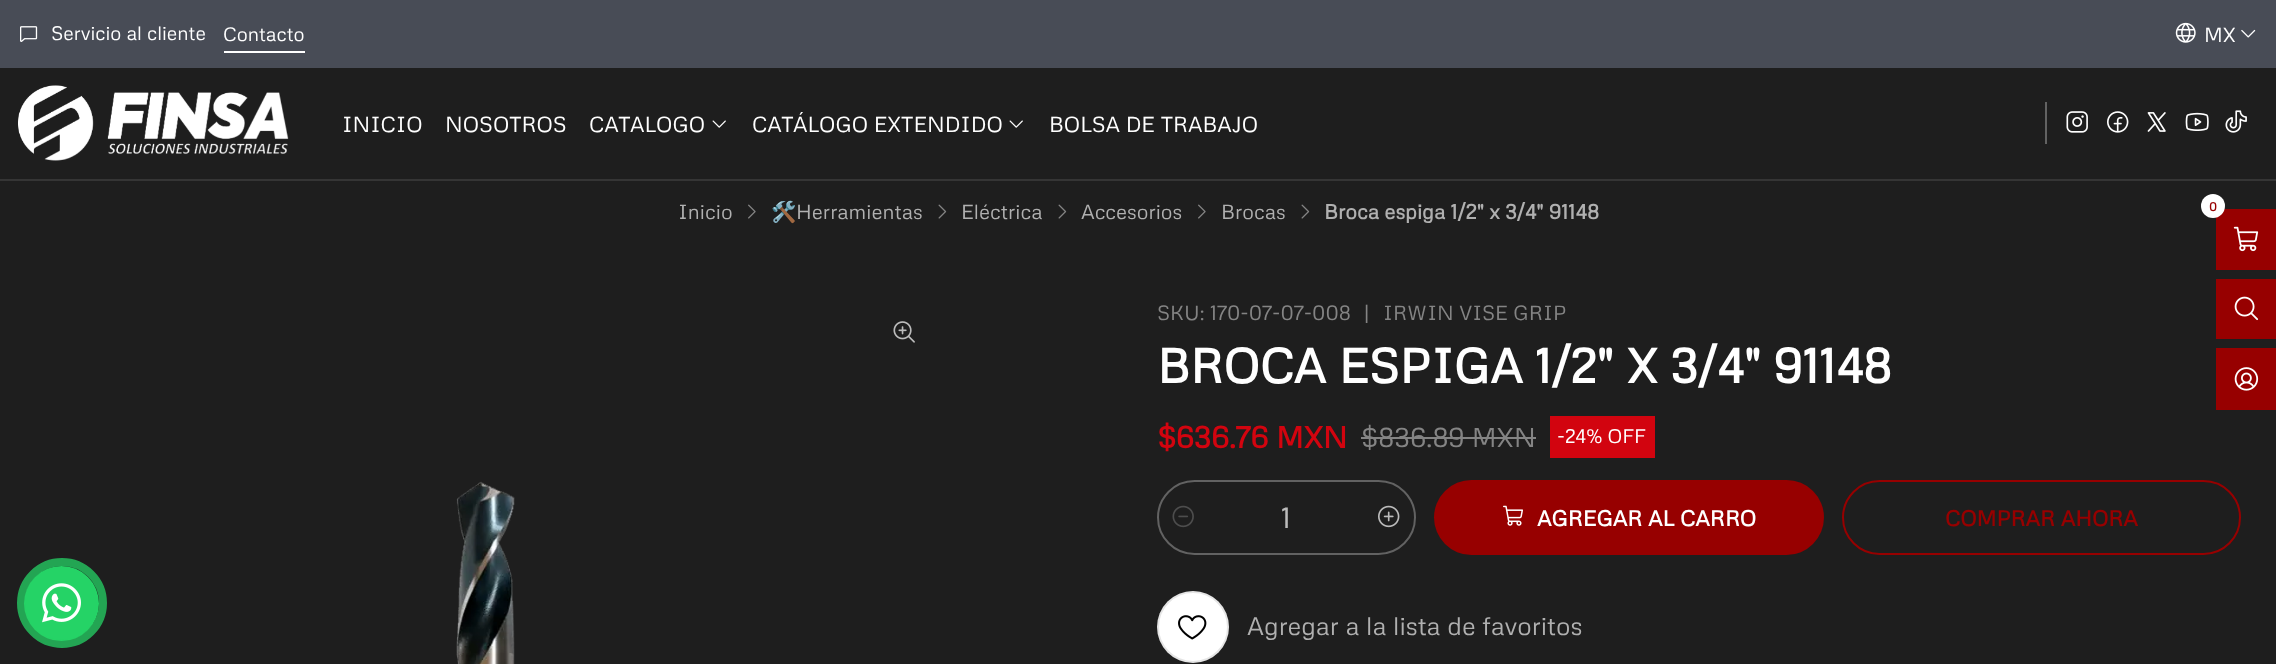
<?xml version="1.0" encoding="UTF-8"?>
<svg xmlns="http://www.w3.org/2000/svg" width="2276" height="664">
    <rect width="100%" height="100%" fill="#1E1E1E"/>
    <rect x="0" y="0" width="2276" height="68" fill="#484C56"/>
    <image x="20" y="26" width="18" height="16" href="img_01.png"/>
    <text x="51" y="40" font-family="Metrophobic" font-size="19.25" fill="#FFFFFF">Servicio al cliente</text>
    <rect x="224" y="51" width="81" height="2" fill="#FFFFFF"/>
    <text x="223" y="41" font-family="Metrophobic" font-size="19.25" fill="#FFFFFF">Contacto</text>
    <image x="2175" y="22" width="21" height="21" href="img_02.png"/>
    <text x="2204" y="42" font-family="Metrophobic" font-size="20.4" fill="#FFFFFF">MX</text>
    <image x="2241" y="29" width="15" height="9" href="img_03.png"/>
    <rect x="0" y="179" width="2276" height="2" fill="#353535"/>
    <image x="18" y="85" width="271" height="76" href="img_04.png"/>
    <text x="342" y="132" font-family="Metrophobic" font-size="21.6" fill="#FFFFFF">INICIO</text>
    <text x="445" y="132" font-family="Metrophobic" font-size="21.6" fill="#FFFFFF">NOSOTROS</text>
    <text x="589" y="132" font-family="Metrophobic" font-size="21.6" fill="#FFFFFF">CATALOGO</text>
    <image x="712" y="120" width="14" height="8" href="img_05.png"/>
    <text x="752" y="132" font-family="Metrophobic" font-size="21.6" fill="#FFFFFF">CATÁLOGO EXTENDIDO</text>
    <image x="1009" y="120" width="14" height="8" href="img_05.png"/>
    <text x="1049" y="132" font-family="Metrophobic" font-size="21.6" fill="#FFFFFF">BOLSA DE TRABAJO</text>
    <rect x="2045" y="102" width="2" height="42" fill="#626262"/>
    <image x="2066" y="111" width="22" height="22" href="img_06.png"/>
    <image x="2107" y="111" width="22" height="22" href="img_07.png"/>
    <image x="2147" y="112" width="19" height="20" href="img_08.png"/>
    <image x="2185" y="112" width="24" height="19" href="img_09.png"/>
    <image x="2225" y="110" width="22" height="23" href="img_10.png"/>
    <rect x="2216" y="209" width="60" height="61" fill="#970000"/>
    <circle cx="2213" cy="206" r="12" fill="#FFFFFF"/>
    <text x="2209" y="211" font-family="Metrophobic" font-size="12" font-weight="700" fill="#970000">0</text>
    <image x="2233" y="226" width="26" height="26" href="img_11.png"/>
    <rect x="2216" y="279" width="60" height="60" fill="#970000"/>
    <image x="2234" y="296" width="25" height="25" href="img_12.png"/>
    <rect x="2216" y="348" width="60" height="62" fill="#970000"/>
    <image x="2234" y="367" width="25" height="24" href="img_13.png"/>
    <text x="678" y="219" font-family="Metrophobic" font-size="20.4" fill="#B0B0B0">Inicio</text>
    <image x="748" y="204" width="8" height="15" href="img_14.png"/>
    <text x="771" y="219" font-family="Noto Color Emoji" font-size="20.4" fill="#B0B0B0">🛠️</text>
    <text x="796" y="219" font-family="Metrophobic" font-size="20.4" fill="#B0B0B0">Herramientas</text>
    <image x="938" y="204" width="9" height="15" href="img_15.png"/>
    <text x="961" y="219" font-family="Metrophobic" font-size="20.4" fill="#B0B0B0">Eléctrica</text>
    <image x="1058" y="204" width="9" height="15" href="img_15.png"/>
    <text x="1081" y="219" font-family="Metrophobic" font-size="20.4" fill="#B0B0B0">Accesorios</text>
    <image x="1198" y="204" width="8" height="15" href="img_14.png"/>
    <text x="1221" y="219" font-family="Metrophobic" font-size="20.4" fill="#B0B0B0">Brocas</text>
    <image x="1301" y="204" width="9" height="15" href="img_15.png"/>
    <text x="1324" y="219" font-family="Metrophobic" font-size="20.4" font-weight="700" fill="#B0B0B0">Broca espiga 1/2" x 3/4" 91148</text>
    <image x="893" y="321" width="22" height="22" href="img_16.png"/>
    <image x="456" y="481" width="59" height="183" href="img_17.png"/>
    <text x="1157" y="320" font-family="Metrophobic" font-size="20.4" fill="#848484">SKU: 170-07-07-008</text>
    <text x="1364" y="320" font-family="Metrophobic" font-size="20.4" fill="#848484">|</text>
    <text x="1383" y="320" font-family="Metrophobic" font-size="20.4" fill="#848484">IRWIN VISE GRIP</text>
    <text x="1157" y="383" font-family="Metrophobic" font-size="48" font-weight="700" fill="#FFFFFF">BROCA ESPIGA 1/2" X 3/4" 91148</text>
    <text x="1157" y="448" font-family="Metrophobic" font-size="30" font-weight="700" fill="#D2040F">$636.76 MXN</text>
    <text x="1361" y="447" font-family="Metrophobic" font-size="27" fill="#848484">$836.89 MXN</text>
    <rect x="1361" y="437" width="175" height="2" fill="#848484"/>
    <rect x="1550" y="416" width="105" height="42" fill="#D2040F"/>
    <text x="1557" y="443" font-family="Metrophobic" font-size="19.5" fill="#FFFFFF">-24% OFF</text>
    <rect x="1158" y="481" width="257" height="73" rx="36.5" fill="none" stroke="#626262" stroke-width="2"/>
    <image x="1172" y="505" width="22" height="23" href="img_18.png"/>
    <text x="1281" y="528" font-family="Metrophobic" font-size="29" fill="#BCBCBC">1</text>
    <image x="1378" y="505" width="22" height="23" href="img_19.png"/>
    <rect x="1434" y="480" width="390" height="75" rx="37.5" fill="#970000"/>
    <image x="1503" y="505" width="20" height="21" href="img_20.png"/>
    <text x="1537" y="526" font-family="Metrophobic" font-size="21.6" font-weight="700" fill="#FFFFFF">AGREGAR AL CARRO</text>
    <rect x="1843" y="481" width="397" height="73" rx="36.5" fill="none" stroke="#970000" stroke-width="2"/>
    <text x="1945" y="526" font-family="Metrophobic" font-size="21.6" font-weight="700" fill="#970000">COMPRAR AHORA</text>
    <circle cx="1193" cy="627" r="36" fill="#FFFFFF"/>
    <circle cx="1193" cy="627" r="35" fill="none" stroke="#000000" stroke-opacity="0.1" stroke-width="2"/>
    <image x="1178" y="615" width="29" height="25" href="img_21.png"/>
    <text x="1247" y="635" font-family="Metrophobic" font-size="25.25" fill="#B0B0B0">Agregar a la lista de favoritos</text>
    <circle cx="61.5" cy="603.5" r="37.5" fill="#25D366"/>
    <image x="42" y="583" width="39" height="40" href="img_22.png"/>
    <circle cx="62" cy="603" r="41" fill="none" stroke="#25D366" stroke-opacity="0.75" stroke-width="8"/>
</svg>
